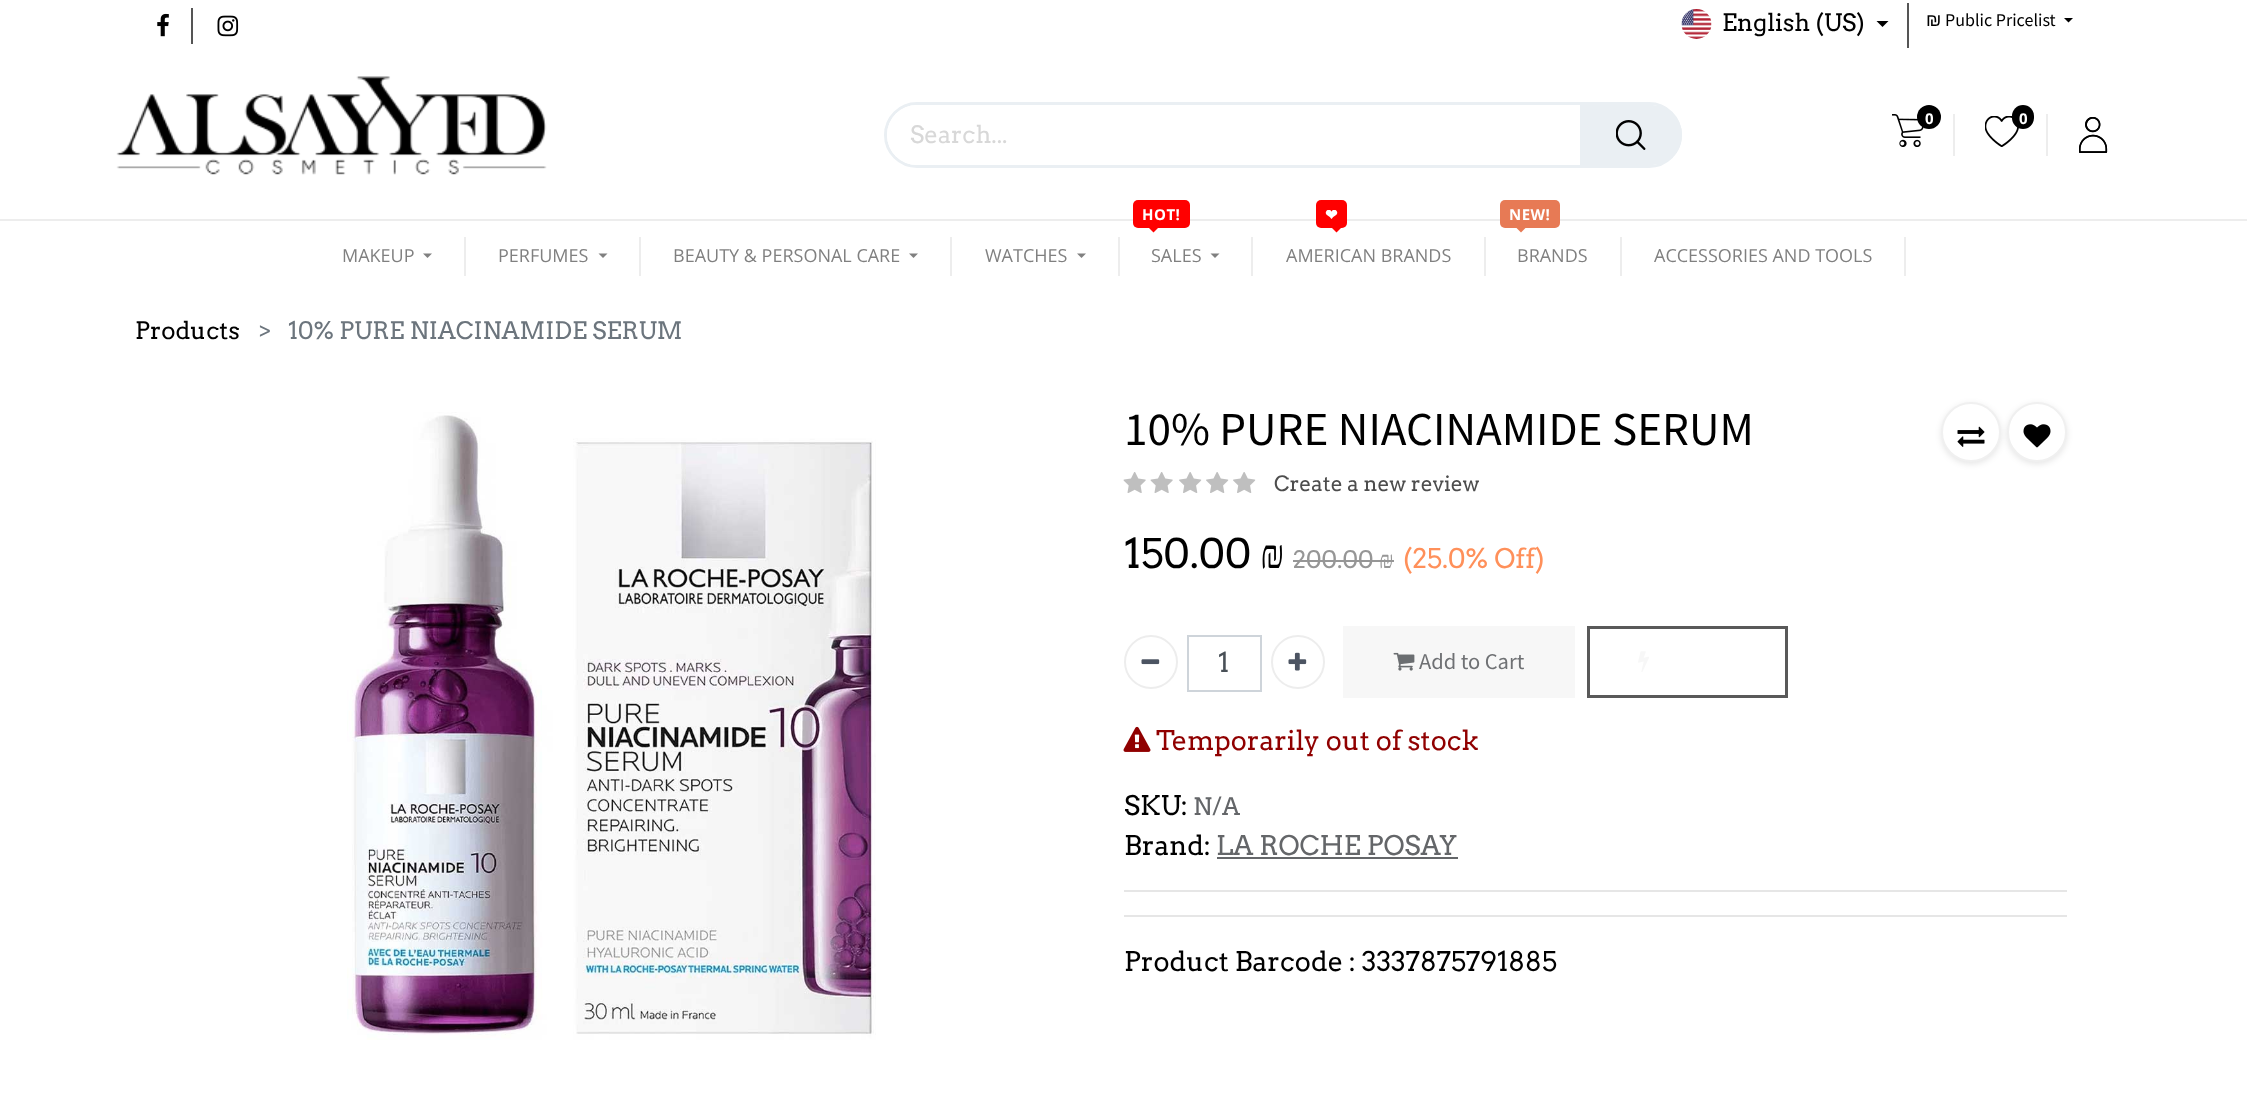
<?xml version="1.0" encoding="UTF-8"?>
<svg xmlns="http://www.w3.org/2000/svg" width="2247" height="1107">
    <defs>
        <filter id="blur1" x="-50%" y="-200%" width="200%" height="500%"><feGaussianBlur stdDeviation="3"/></filter>
    </defs>
    <rect width="100%" height="100%" fill="#FFFFFF"/>
    <rect x="191" y="8" width="2" height="36" fill="#555555"/>
    <image x="157" y="13" width="12" height="24" href="img_01.png"/>
    <image x="217" y="15" width="22" height="22" href="img_02.png"/>
    <image x="1681" y="9" width="31" height="30" href="img_03.png"/>
    <text x="1722" y="31" font-family="Arvo" font-size="24" fill="#000000">English (US)</text>
    <path d="M 1876.5 21 H 1888.5 L 1882.5 27 Z" fill="#000000"/>
    <rect x="1907" y="3" width="2" height="45" fill="#555555"/>
    <text x="1926" y="26" font-family="Liberation Sans" font-size="18" fill="#000000">₪</text>
    <text x="1945" y="26" font-family="Source Sans Pro" font-size="18" fill="#000000">Public Pricelist</text>
    <path d="M 2064 18 H 2073 L 2068.5 22.5 Z" fill="#000000"/>
    <image x="116" y="76" width="431" height="99" href="img_04.png"/>
    <rect x="1953" y="114" width="2" height="42" fill="#EDEDED"/>
    <image x="1892" y="114" width="32" height="33" href="img_05.png"/>
    <circle cx="1929" cy="117" r="12" fill="#000000"/>
    <text x="1925" y="124" font-family="Open Sans" font-size="15" font-weight="700" fill="#FFFFFF">0</text>
    <rect x="2046" y="114" width="2" height="42" fill="#EDEDED"/>
    <image x="1985" y="116" width="34" height="31" href="img_06.png"/>
    <rect x="2012" y="105" width="22" height="24" rx="11" fill="#000000"/>
    <text x="2019" y="124" font-family="Open Sans" font-size="15" font-weight="700" fill="#FFFFFF">0</text>
    <image x="2079" y="117" width="29" height="36" href="img_07.png"/>
    <image x="2079" y="117" width="29" height="36" href="img_08.png"/>
    <rect x="885.5" y="103.5" width="795" height="63" rx="31.5" fill="none" stroke="#EAEFF3" stroke-width="3"/>
    <rect x="887" y="105" width="793" height="60" rx="30" fill="#FFFFFF"/>
    <text x="910" y="143" font-family="Arvo" font-size="24" fill="#D8D8D8">Search...</text>
    <path d="M 1580 105 H 1652 C 1668.5 105 1682 118.5 1682 135 C 1682 151.5 1668.5 165 1652 165 H 1580 Z" fill="#EAEFF3"/>
    <image x="1616" y="120" width="30" height="30" href="img_09.png"/>
    <rect x="0" y="219" width="2247" height="2" fill="#EDEDED"/>
    <text x="342" y="262" font-family="Open Sans" font-size="18" fill="#808080">MAKEUP</text>
    <path d="M 423 253.5 H 432 L 427.5 258 Z" fill="#808080"/>
    <rect x="464" y="237" width="2" height="39" fill="#EDEDED"/>
    <text x="498" y="262" font-family="Open Sans" font-size="18" fill="#808080">PERFUMES</text>
    <path d="M 598.5 253.5 H 607.5 L 603 258 Z" fill="#808080"/>
    <rect x="639" y="237" width="2" height="39" fill="#EDEDED"/>
    <text x="673" y="262" font-family="Open Sans" font-size="18" fill="#808080">BEAUTY &amp; PERSONAL CARE</text>
    <path d="M 909 253.5 H 918 L 913.5 258 Z" fill="#808080"/>
    <rect x="950" y="237" width="2" height="39" fill="#EDEDED"/>
    <text x="985" y="262" font-family="Open Sans" font-size="18" fill="#808080">WATCHES</text>
    <path d="M 1077 253.5 H 1086 L 1081.5 258 Z" fill="#808080"/>
    <rect x="1118" y="237" width="2" height="39" fill="#EDEDED"/>
    <rect x="1133" y="200" width="57" height="28" rx="5" fill="#FF0000"/>
    <text x="1142" y="220" font-family="Open Sans" font-size="15" font-weight="700" letter-spacing="0.5" fill="#FFFFFF">HOT!</text>
    <path d="M 1147.5 226.5 H 1159.5 L 1153.5 232.5 Z" fill="#FF0000"/>
    <text x="1151" y="262" font-family="Open Sans" font-size="18" fill="#808080">SALES</text>
    <path d="M 1210.5 253.5 H 1219.5 L 1215 258 Z" fill="#808080"/>
    <rect x="1251" y="237" width="2" height="39" fill="#EDEDED"/>
    <rect x="1316" y="200" width="31" height="28" rx="5" fill="#FF0000"/>
    <text x="1325" y="220" font-family="DejaVu Sans" font-size="15" font-weight="700" letter-spacing="0.5" fill="#FFFFFF">❤</text>
    <path d="M 1330.5 226.5 H 1342.5 L 1336.5 232.5 Z" fill="#FF0000"/>
    <text x="1286" y="262" font-family="Open Sans" font-size="18" fill="#808080">AMERICAN BRANDS</text>
    <rect x="1484" y="237" width="2" height="39" fill="#EDEDED"/>
    <rect x="1500" y="200" width="60" height="28" rx="5" fill="#E77A55"/>
    <text x="1509" y="220" font-family="Open Sans" font-size="15" font-weight="700" letter-spacing="0.5" fill="#FFFFFF">NEW!</text>
    <path d="M 1515 226.5 H 1527 L 1521 232.5 Z" fill="#E77A55"/>
    <text x="1517" y="262" font-family="Open Sans" font-size="18" fill="#808080">BRANDS</text>
    <rect x="1620" y="237" width="2" height="39" fill="#EDEDED"/>
    <text x="1654" y="262" font-family="Open Sans" font-size="18" fill="#808080">ACCESSORIES AND TOOLS</text>
    <rect x="1904" y="237" width="2" height="39" fill="#EDEDED"/>
    <text x="135" y="339" font-family="Arvo" font-size="24" fill="#000000">Products</text>
    <text x="258" y="339" font-family="Arvo" font-size="24" fill="#6C757D">&gt;</text>
    <text x="288" y="339" font-family="Arvo" font-size="24" fill="#6C757D">10% PURE NIACINAMIDE SERUM</text>
    <image x="347" y="412" width="529" height="628" href="img_10.png"/>
    <text x="1124" y="445" font-family="Source Sans Pro" font-size="47.25" fill="#000000">10% PURE NIACINAMIDE SERUM</text>
    <rect x="1941" y="404" width="60" height="60" rx="30" fill="#000000" fill-opacity="0.1" filter="url(#blur1)"/>
    <circle cx="1971" cy="432" r="29" fill="#FFFFFF" stroke="#F0F0F0" stroke-width="2"/>
    <image x="1957" y="426" width="28" height="21" href="img_11.png"/>
    <rect x="2007" y="404" width="60" height="60" rx="30" fill="#000000" fill-opacity="0.1" filter="url(#blur1)"/>
    <circle cx="2037" cy="432" r="29" fill="#FFFFFF" stroke="#F0F0F0" stroke-width="2"/>
    <image x="2023" y="424" width="28" height="24" href="img_12.png"/>
    <image x="1123" y="472" width="23" height="21" href="img_13.png"/>
    <image x="1150" y="472" width="23" height="21" href="img_13.png"/>
    <image x="1179" y="472" width="23" height="21" href="img_14.png"/>
    <image x="1206" y="472" width="23" height="21" href="img_14.png"/>
    <image x="1233" y="472" width="23" height="21" href="img_14.png"/>
    <text x="1274" y="491" font-family="Arvo" font-size="21" fill="#4D4D4D">Create a new review</text>
    <text x="1124" y="568" font-family="Arvo" font-size="40.5" fill="#000000">150.00</text>
    <text x="1260" y="568" font-family="Liberation Serif" font-size="40.5" fill="#000000">₪</text>
    <text x="1293" y="568" font-family="Arvo" font-size="24" fill="#969696">200.00</text>
    <rect x="1293" y="560" width="81" height="2" fill="#969696"/>
    <text x="1379" y="568" font-family="Liberation Serif" font-size="24" fill="#969696">₪</text>
    <rect x="1374" y="560" width="20" height="2" fill="#969696"/>
    <text x="1403" y="568" font-family="Arvo" font-size="27" fill="#FF905A">(25.0% Off)</text>
    <circle cx="1151" cy="662" r="26" fill="none" stroke="#EDEDED" stroke-width="2"/>
    <image x="1141" y="659" width="19" height="6" href="img_15.png"/>
    <rect x="1188" y="636" width="73" height="55" fill="none" stroke="#CED4DA" stroke-width="2"/>
    <text x="1218" y="672" font-family="Arvo" font-size="27" fill="#495057">1</text>
    <circle cx="1298" cy="662" r="26" fill="none" stroke="#EDEDED" stroke-width="2"/>
    <image x="1288" y="652" width="19" height="19" href="img_16.png"/>
    <rect x="1343" y="626" width="232" height="72" fill="#F7F7F7"/>
    <image x="1393" y="652" width="22" height="19" href="img_17.png"/>
    <text x="1419" y="669" font-family="Source Sans Pro" font-size="22.5" fill="#6F7174">Add to Cart</text>
    <rect x="1588.5" y="627.5" width="198" height="69" fill="none" stroke="#595959" stroke-width="3"/>
    <image x="1638" y="651" width="11" height="21" href="img_18.png"/>
    <image x="1123" y="726" width="28" height="26" href="img_19.png"/>
    <text x="1156" y="750" font-family="Arvo" font-size="27" fill="#900000">Temporarily out of stock</text>
    <text x="1124" y="815" font-family="Arvo" font-size="27" fill="#000000">SKU:</text>
    <text x="1193" y="815" font-family="Arvo" font-size="24" fill="#646669">N/A</text>
    <text x="1124" y="855" font-family="Arvo" font-size="27" fill="#000000">Brand:</text>
    <text x="1216" y="855" font-family="Arvo" font-size="27" fill="#646669">LA ROCHE POSAY</text>
    <rect x="1217" y="857" width="241" height="2" fill="#646669"/>
    <rect x="1124" y="890" width="943" height="2" fill="#E6E6E6"/>
    <rect x="1124" y="915" width="943" height="2" fill="#E6E6E6"/>
    <text x="1124" y="971" font-family="Arvo" font-size="27" fill="#000000">Product Barcode : 3337875791885</text>
</svg>
